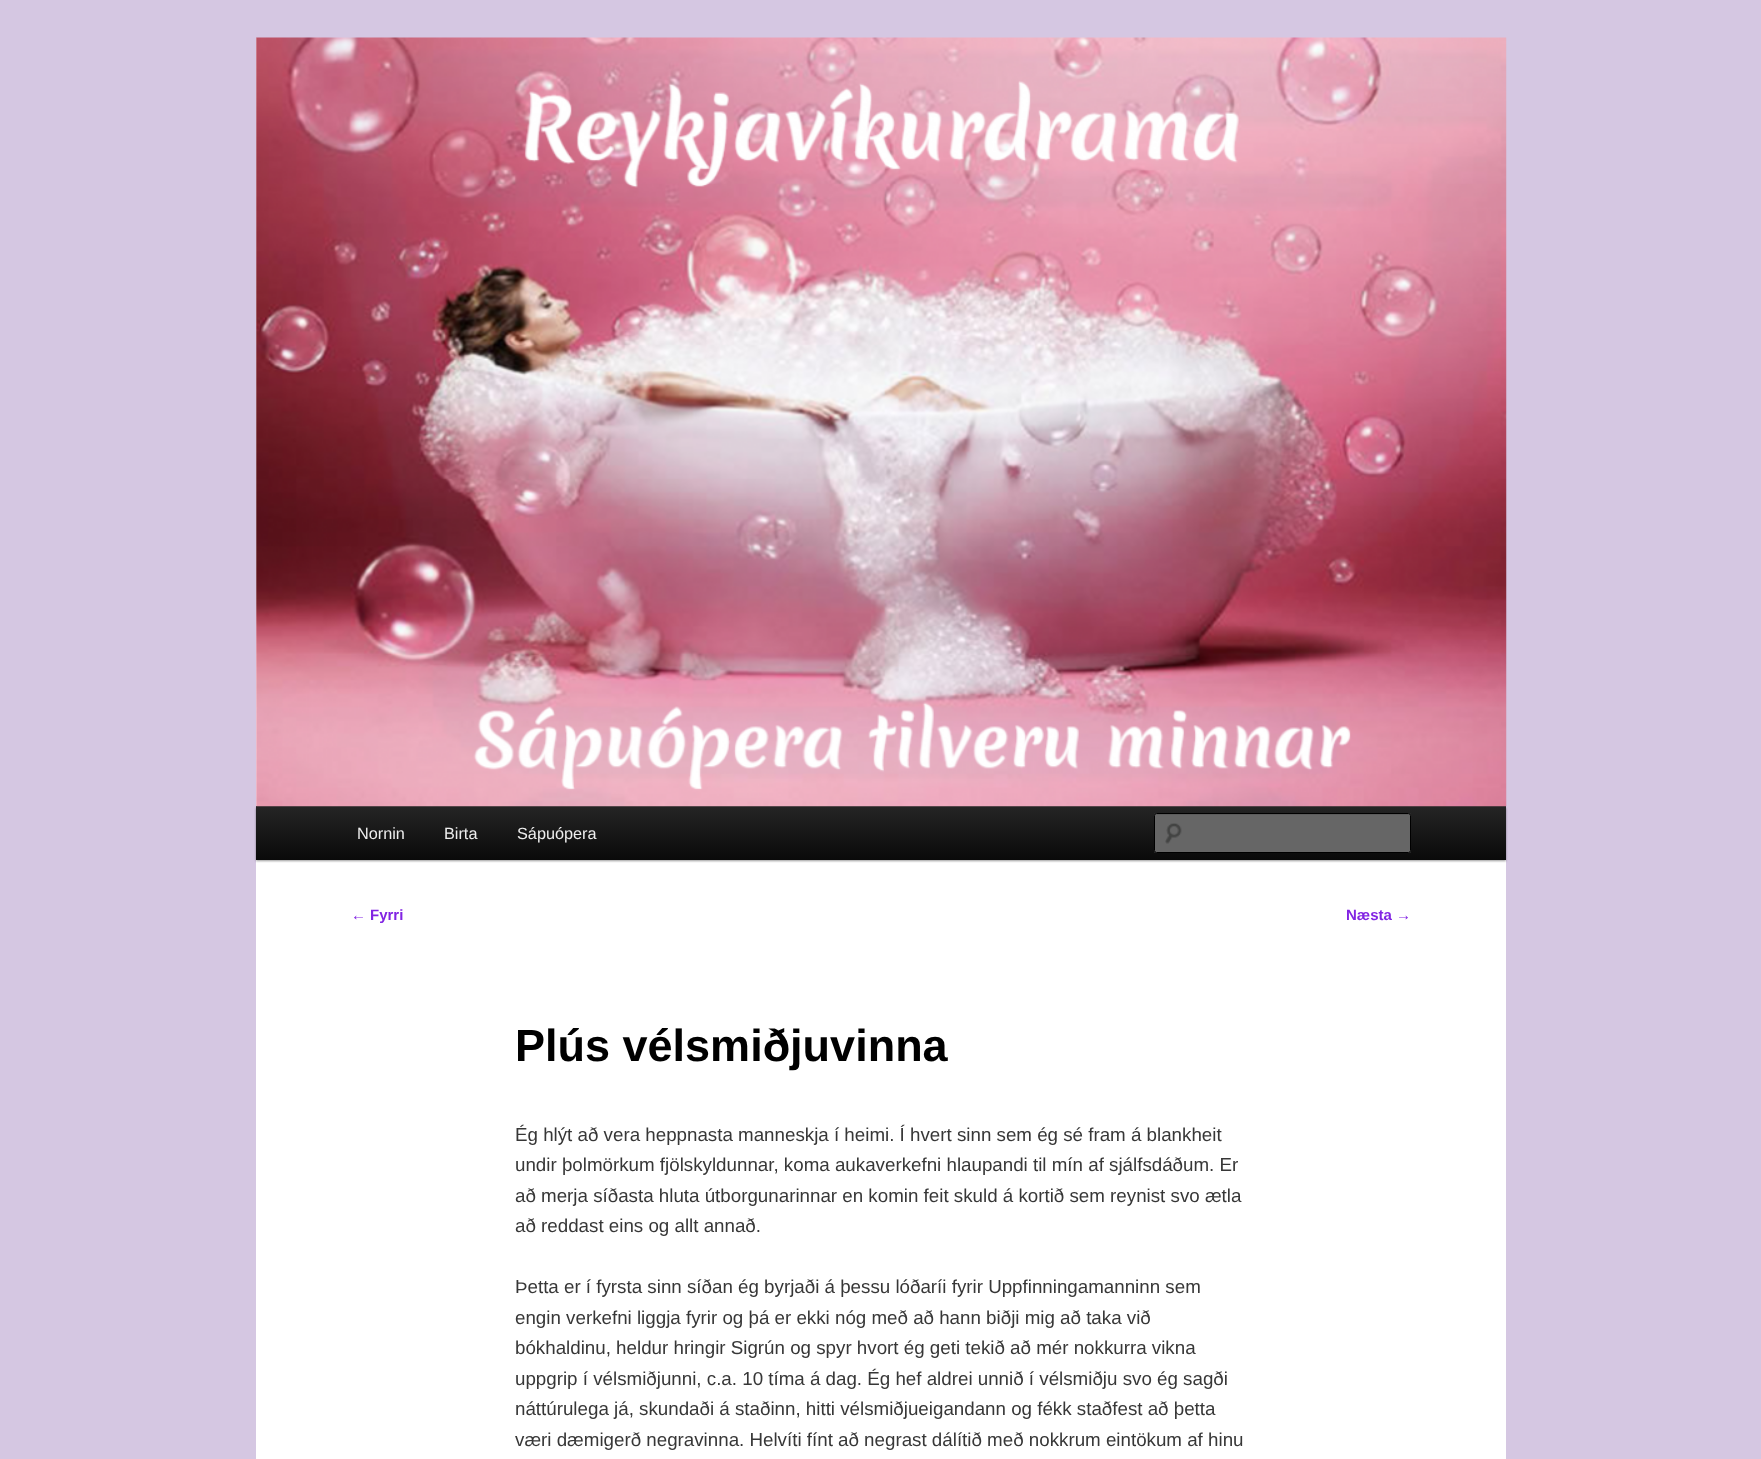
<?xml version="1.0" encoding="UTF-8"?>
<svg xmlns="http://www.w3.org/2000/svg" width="1761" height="1459">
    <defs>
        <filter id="blur1" x="-50%" y="-200%" width="200%" height="500%"><feGaussianBlur stdDeviation="1"/></filter>
        <linearGradient id="g1" gradientUnits="userSpaceOnUse" x1="881" y1="806" x2="881" y2="860"><stop offset="0" stop-color="#252525"/><stop offset="1" stop-color="#0A0A0A"/></linearGradient>
    </defs>
    <rect width="100%" height="100%" fill="#D5C7E2"/>
    <rect x="256" y="38" width="1250" height="1421" fill="#FFFFFF"/>
    <rect x="256" y="808" width="1250" height="53" fill="#000000" fill-opacity="0.4" filter="url(#blur1)"/>
    <rect x="256" y="806" width="1250" height="54" fill="url(#g1)"/>
    <image x="256" y="37" width="1251" height="770" href="img_01.png"/>
    <text x="357" y="839" font-family="Liberation Sans" font-size="16.25" fill="#EEEEEE">Nornin</text>
    <text x="444" y="839" font-family="Liberation Sans" font-size="16.25" fill="#EEEEEE">Birta</text>
    <text x="517" y="839" font-family="Liberation Sans" font-size="16.25" fill="#EEEEEE">Sápuópera</text>
    <rect x="1154" y="813" width="257" height="40" rx="2.5" fill="#666666"/>
    <image x="1165" y="823" width="17" height="21" href="img_02.png"/>
    <path d="M 1156 815 H 1409 L 1410 816 V 814 H 1156 C 1155 814 1155 815 1155 816 Z" fill="#5C5C5C"/>
    <rect x="1154.5" y="813.5" width="256" height="39" rx="2" fill="none" stroke="#000000"/>
    <text x="351" y="920" font-family="Liberation Sans" font-size="15" fill="#8224E3">←</text>
    <text x="370" y="920" font-family="Liberation Sans" font-size="15" font-weight="700" fill="#8224E3">Fyrri</text>
    <text x="1346" y="920" font-family="Liberation Sans" font-size="15" font-weight="700" fill="#8224E3">Næsta</text>
    <text x="1396" y="920" font-family="Liberation Sans" font-size="15" fill="#8224E3">→</text>
    <text x="515" y="1061" font-family="Liberation Sans" font-size="45" font-weight="700" fill="#000000">Plús vélsmiðjuvinna</text>
    <text font-family="Liberation Sans" font-size="18.75" fill="#373737">
        <tspan x="515" y="1141">Ég hlýt að vera heppnasta manneskja í heimi. Í hvert sinn sem ég sé fram á blankheit</tspan>
        <tspan x="515" y="1171">undir þolmörkum fjölskyldunnar, koma aukaverkefni hlaupandi til mín af sjálfsdáðum. Er</tspan>
        <tspan x="515" y="1202">að merja síðasta hluta útborgunarinnar en komin feit skuld á kortið sem reynist svo ætla</tspan>
        <tspan x="515" y="1232">að reddast eins og allt annað.</tspan>
    </text>
    <text font-family="Liberation Sans" font-size="18.75" fill="#373737">
        <tspan x="515" y="1293">Þetta er í fyrsta sinn síðan ég byrjaði á þessu lóðaríi fyrir Uppfinningamanninn sem</tspan>
        <tspan x="515" y="1324">engin verkefni liggja fyrir og þá er ekki nóg með að hann biðji mig að taka við</tspan>
        <tspan x="515" y="1354">bókhaldinu, heldur hringir Sigrún og spyr hvort ég geti tekið að mér nokkurra vikna</tspan>
        <tspan x="515" y="1385">uppgrip í vélsmiðjunni, c.a. 10 tíma á dag. Ég hef aldrei unnið í vélsmiðju svo ég sagði</tspan>
        <tspan x="515" y="1415">náttúrulega já, skundaði á staðinn, hitti vélsmiðjueigandann og fékk staðfest að þetta</tspan>
        <tspan x="515" y="1446">væri dæmigerð negravinna. Helvíti fínt að negrast dálítið með nokkrum eintökum af hinu</tspan>
    </text>
</svg>
